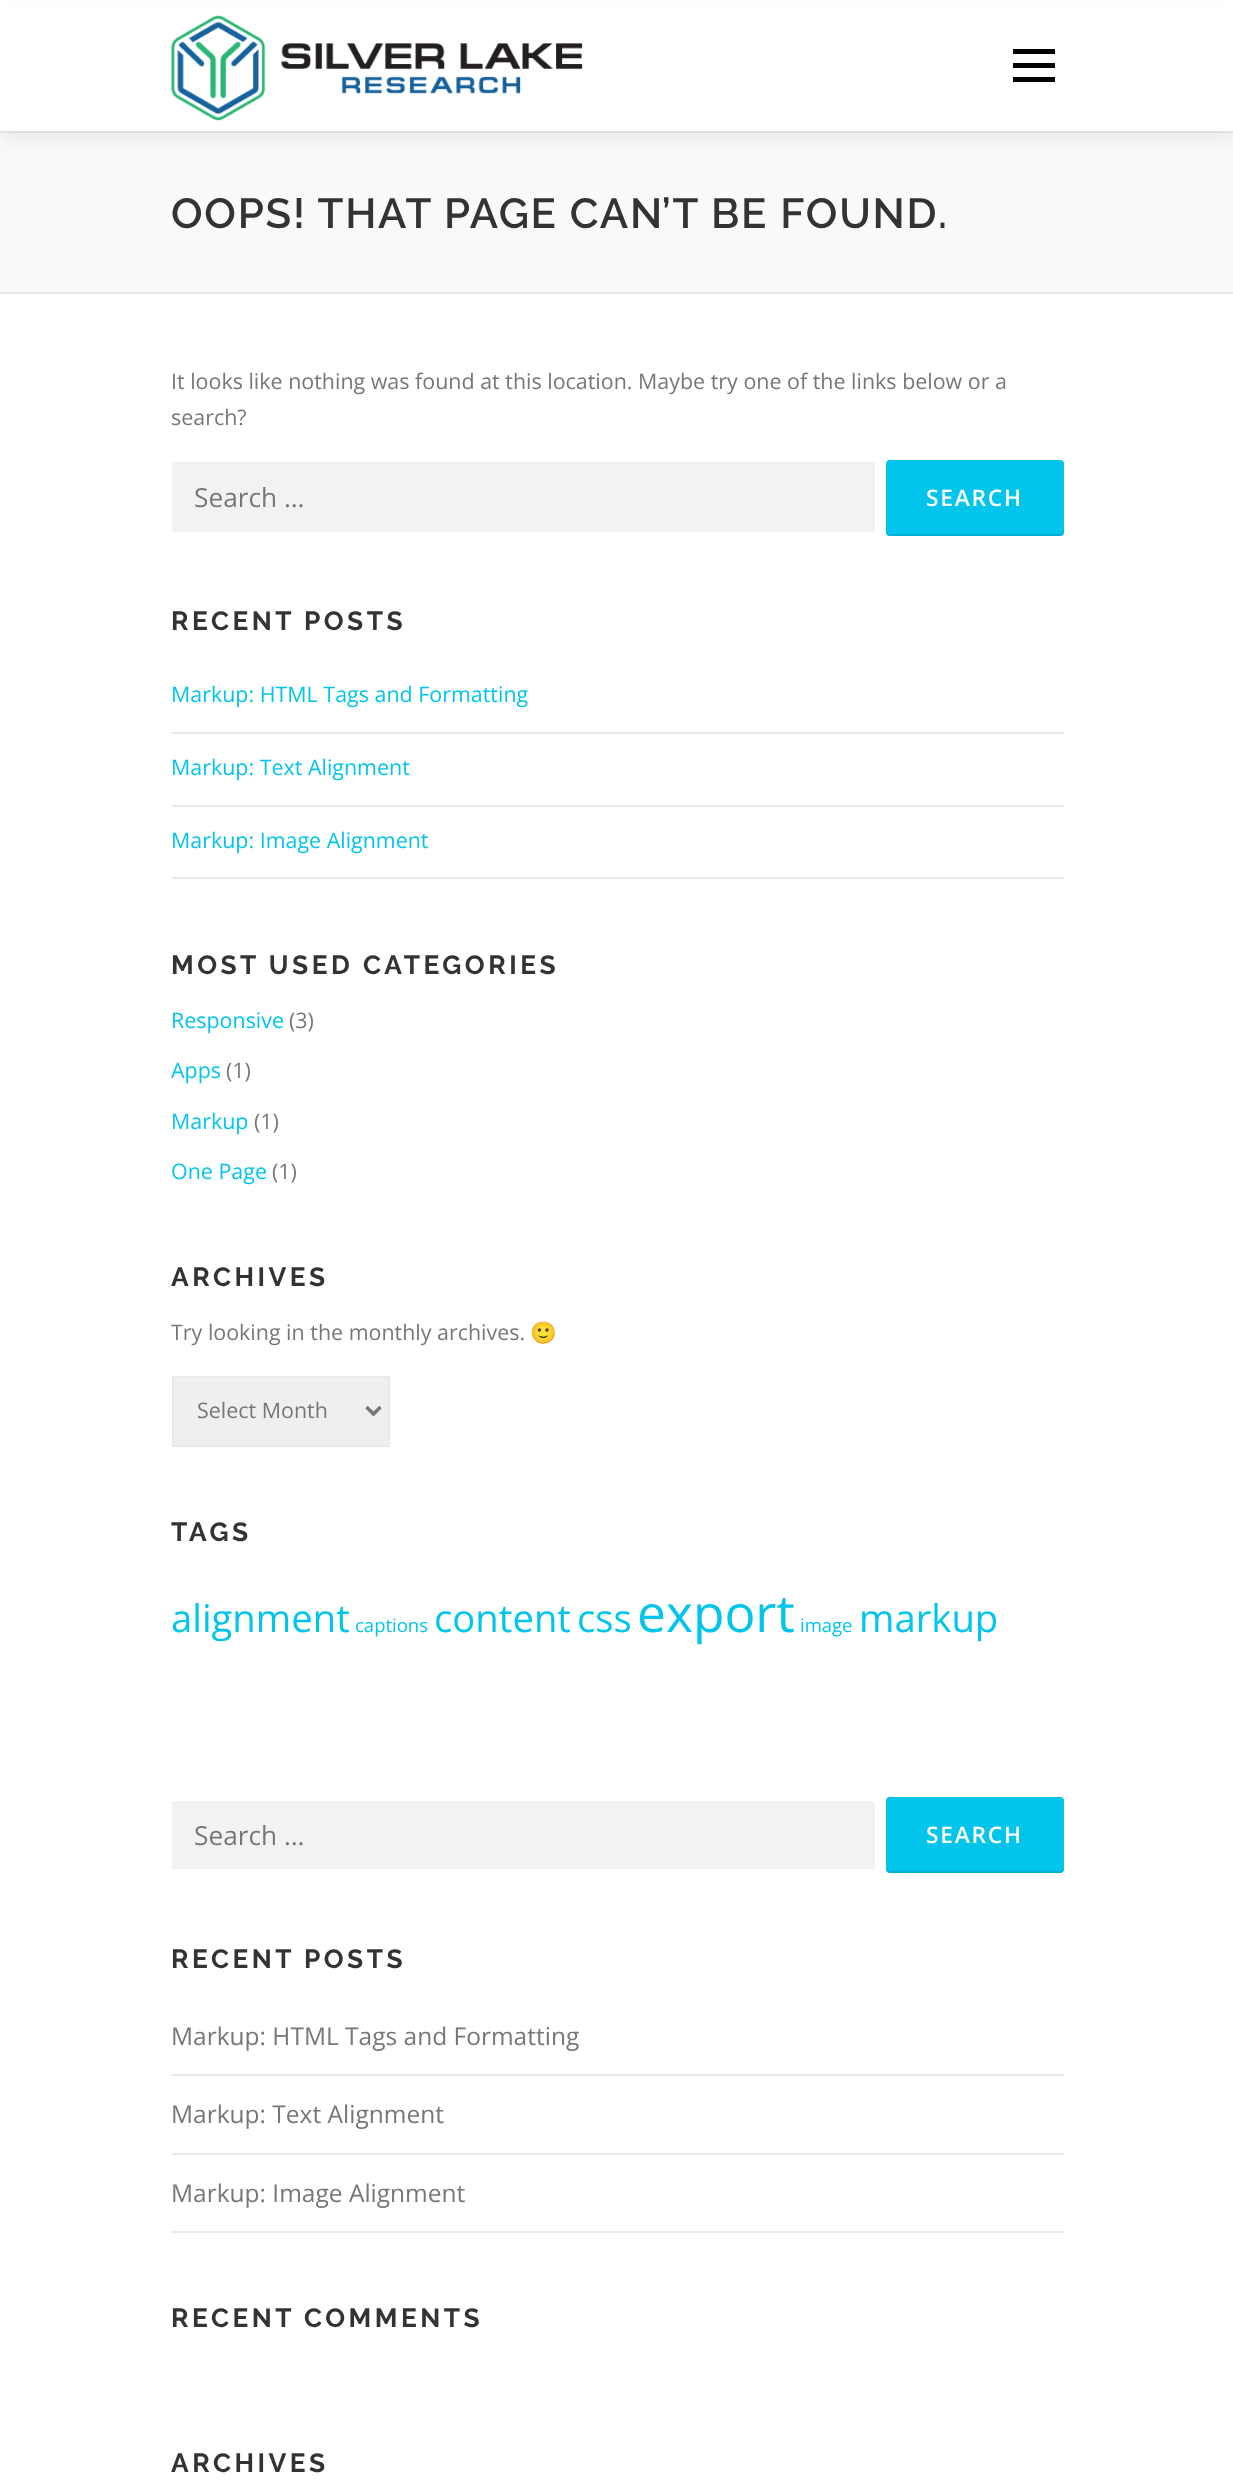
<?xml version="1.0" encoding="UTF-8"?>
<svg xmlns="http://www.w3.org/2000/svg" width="1233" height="2481">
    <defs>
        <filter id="blur1" x="-50%" y="-200%" width="200%" height="500%"><feGaussianBlur stdDeviation="9"/></filter>
    </defs>
    <rect width="100%" height="100%" fill="#FFFFFF"/>
    <rect x="0" y="133" width="1233" height="159" fill="#F8F9F9"/>
    <rect x="0" y="131" width="1233" height="2" fill="#E9E9E9"/>
    <rect x="0" y="9" width="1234" height="131" fill="#323232" fill-opacity="0.06" filter="url(#blur1)"/>
    <rect x="0" y="2" width="1233" height="129" fill="#FFFFFF"/>
    <image x="171" y="15" width="412" height="106" href="img_01.png"/>
    <rect x="1013" y="63" width="42" height="5" fill="#000000"/>
    <rect x="1013" y="49" width="42" height="5" fill="#000000"/>
    <rect x="1013" y="77" width="42" height="5" fill="#000000"/>
    <rect x="0" y="292" width="1233" height="2" fill="#E9E9E9"/>
    <text x="171" y="228" font-family="Raleway" font-size="42" font-weight="600" letter-spacing="1.75" fill="#333333">OOPS! THAT PAGE CAN’T BE FOUND.</text>
    <text font-family="Open Sans" font-size="21.45" fill="#777777">
        <tspan x="171" y="389">It looks like nothing was found at this location. Maybe try one of the links below or a</tspan>
        <tspan x="171" y="425">search?</tspan>
    </text>
    <rect x="172" y="462" width="703" height="70" fill="#F2F2F2"/>
    <text x="194" y="507" font-family="Open Sans" font-size="26.25" fill="#777777">Search …</text>
    <rect x="886" y="460" width="178" height="76" rx="4" fill="#03C4EB"/>
    <path d="M 886 530 V 532 C 886 534 888 536 890 536 H 1060 C 1062 536 1064 534 1064 532 V 530 C 1064 532 1062 534 1060 534 H 889 C 887 534 886 532 886 530 Z" fill="#000000" fill-opacity="0.1"/>
    <text x="926" y="506" font-family="Open Sans" font-size="22.75" font-weight="600" letter-spacing="1.75" fill="#FFFFFF">SEARCH</text>
    <text x="171" y="630" font-family="Raleway" font-size="26.25" font-weight="700" letter-spacing="3.5" fill="#333333">RECENT POSTS</text>
    <rect x="172" y="732" width="892" height="2" fill="#E9E9E9"/>
    <text x="171" y="702" font-family="Open Sans" font-size="21.45" fill="#03C4EB">Markup: HTML Tags and Formatting</text>
    <rect x="172" y="805" width="892" height="2" fill="#E9E9E9"/>
    <text x="171" y="775" font-family="Open Sans" font-size="21.45" fill="#03C4EB">Markup: Text Alignment</text>
    <rect x="172" y="877" width="892" height="2" fill="#E9E9E9"/>
    <text x="171" y="848" font-family="Open Sans" font-size="21.45" fill="#03C4EB">Markup: Image Alignment</text>
    <text x="171" y="974" font-family="Raleway" font-size="26.25" font-weight="700" letter-spacing="3.5" fill="#333333">MOST USED CATEGORIES</text>
    <text x="171" y="1028" font-family="Open Sans" font-size="21.45" fill="#03C4EB">Responsive</text>
    <text x="289" y="1028" font-family="Open Sans" font-size="21.45" fill="#777777">(3)</text>
    <text x="171" y="1078" font-family="Open Sans" font-size="21.45" fill="#03C4EB">Apps</text>
    <text x="226" y="1078" font-family="Open Sans" font-size="21.45" fill="#777777">(1)</text>
    <text x="171" y="1129" font-family="Open Sans" font-size="21.45" fill="#03C4EB">Markup</text>
    <text x="254" y="1129" font-family="Open Sans" font-size="21.45" fill="#777777">(1)</text>
    <text x="171" y="1179" font-family="Open Sans" font-size="21.45" fill="#03C4EB">One Page</text>
    <text x="272" y="1179" font-family="Open Sans" font-size="21.45" fill="#777777">(1)</text>
    <text x="171" y="1286" font-family="Raleway" font-size="26.25" font-weight="700" letter-spacing="3.5" fill="#333333">ARCHIVES</text>
    <text x="171" y="1340" font-family="Open Sans" font-size="21.45" fill="#777777">Try looking in the monthly archives.</text>
    <text x="530" y="1340" font-family="Noto Color Emoji" font-size="21.45" fill="#777777">🙂</text>
    <rect x="173" y="1377" width="216" height="69" fill="#EFEFEF" stroke="#E9E9E9" stroke-width="2"/>
    <path d="M 366.5 1407 L 373.5 1414 L 380.5 1407" fill="none" stroke="#777777" stroke-width="3.5"/>
    <text x="197" y="1418" font-family="Open Sans" font-size="21.45" fill="#777777">Select Month</text>
    <text x="171" y="1541" font-family="Raleway" font-size="26.25" font-weight="700" letter-spacing="3.5" fill="#333333">TAGS</text>
    <text x="171" y="1632" font-family="Open Sans" font-size="38.25" fill="#03C4EB">alignment</text>
    <text x="355" y="1632" font-family="Open Sans" font-size="18.5" fill="#03C4EB">captions</text>
    <text x="434" y="1632" font-family="Open Sans" font-size="38.25" fill="#03C4EB">content</text>
    <text x="577" y="1632" font-family="Open Sans" font-size="38.25" fill="#03C4EB">css</text>
    <text x="637" y="1632" font-family="Open Sans" font-size="51.5" fill="#03C4EB">export</text>
    <text x="800" y="1632" font-family="Open Sans" font-size="18.5" fill="#03C4EB">image</text>
    <text x="859" y="1632" font-family="Open Sans" font-size="38.25" fill="#03C4EB">markup</text>
    <rect x="172" y="1801" width="703" height="68" fill="#F2F2F2"/>
    <text x="194" y="1845" font-family="Open Sans" font-size="26.25" fill="#777777">Search …</text>
    <rect x="886" y="1797" width="178" height="76" rx="4" fill="#03C4EB"/>
    <path d="M 886 1867 V 1869 C 886 1871 888 1873 890 1873 H 1060 C 1062 1873 1064 1871 1064 1869 V 1867 C 1064 1869 1062 1871 1060 1871 H 889 C 887 1871 886 1869 886 1867 Z" fill="#000000" fill-opacity="0.1"/>
    <text x="926" y="1843" font-family="Open Sans" font-size="22.75" font-weight="600" letter-spacing="1.75" fill="#FFFFFF">SEARCH</text>
    <text x="171" y="1968" font-family="Raleway" font-size="26.25" font-weight="700" letter-spacing="3.5" fill="#333333">RECENT POSTS</text>
    <rect x="172" y="2074" width="892" height="2" fill="#E9E9E9"/>
    <text x="171" y="2045" font-family="Open Sans" font-size="24.5" fill="#777777">Markup: HTML Tags and Formatting</text>
    <rect x="172" y="2153" width="892" height="2" fill="#E9E9E9"/>
    <text x="171" y="2123" font-family="Open Sans" font-size="24.5" fill="#777777">Markup: Text Alignment</text>
    <rect x="172" y="2231" width="892" height="2" fill="#E9E9E9"/>
    <text x="171" y="2202" font-family="Open Sans" font-size="24.5" fill="#777777">Markup: Image Alignment</text>
    <text x="171" y="2327" font-family="Raleway" font-size="26.25" font-weight="700" letter-spacing="3.5" fill="#333333">RECENT COMMENTS</text>
    <text x="171" y="2472" font-family="Raleway" font-size="26.25" font-weight="700" letter-spacing="3.5" fill="#333333">ARCHIVES</text>
</svg>
